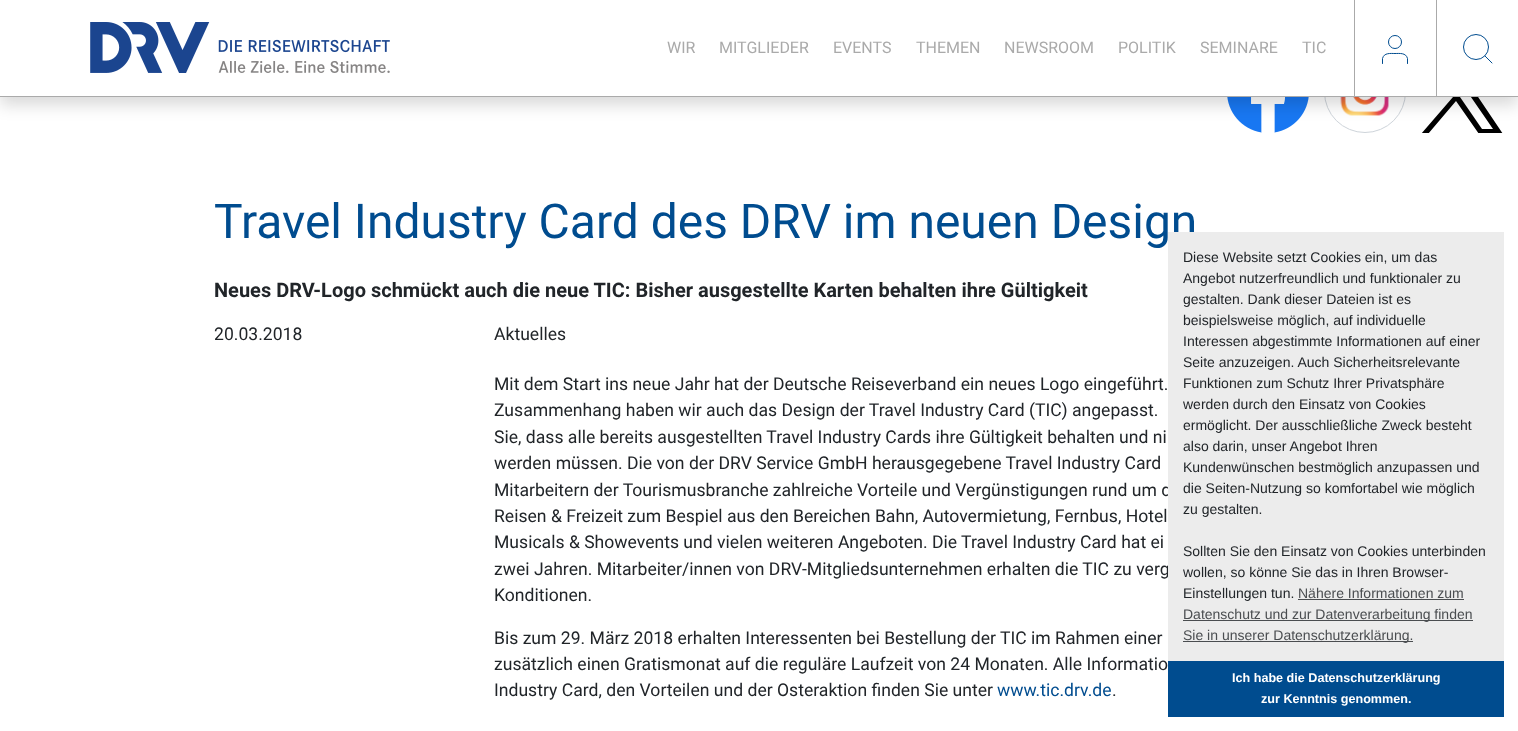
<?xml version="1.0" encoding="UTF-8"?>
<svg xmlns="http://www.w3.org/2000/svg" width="1518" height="731">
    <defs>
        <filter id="blur1" x="-50%" y="-200%" width="200%" height="500%"><feGaussianBlur stdDeviation="8"/></filter>
    </defs>
    <rect width="100%" height="100%" fill="#FFFFFF"/>
    <image x="1227" y="97" width="82" height="36" href="img_02.png"/>
    <circle cx="1365" cy="92" r="40.5" fill="none" stroke="#CED4DA"/>
    <image x="1340" y="97" width="49" height="19" href="img_03.png"/>
    <path d="M 1470 85 L 1500 50 H 1493 L 1467 81 L 1445 50 H 1421 L 1453 97 L 1421 134 H 1428 L 1456 101 L 1479 134 H 1503 Z M 1460 97 L 1431 55 H 1442 L 1493 129 H 1482 Z" fill="#000000"/>
    <rect x="0" y="8" width="1518" height="97" fill="#000000" fill-opacity="0.15" filter="url(#blur1)"/>
    <rect x="0" y="96" width="1518" height="1" fill="#AAAAAA"/>
    <rect x="0" y="0" width="1518" height="96" fill="#FFFFFF"/>
    <image x="90" y="22" width="300" height="51" href="img_01.png"/>
    <text x="667" y="53" font-family="Roboto" font-size="16" fill="#AAAAAA">WIR</text>
    <text x="719" y="53" font-family="Roboto" font-size="16" fill="#AAAAAA">MITGLIEDER</text>
    <text x="833" y="53" font-family="Roboto" font-size="16" fill="#AAAAAA">EVENTS</text>
    <text x="916" y="53" font-family="Roboto" font-size="16" fill="#AAAAAA">THEMEN</text>
    <text x="1004" y="53" font-family="Roboto" font-size="16" fill="#AAAAAA">NEWSROOM</text>
    <text x="1118" y="53" font-family="Roboto" font-size="16" fill="#AAAAAA">POLITIK</text>
    <text x="1200" y="53" font-family="Roboto" font-size="16" fill="#AAAAAA">SEMINARE</text>
    <text x="1302" y="53" font-family="Roboto" font-size="16" fill="#AAAAAA">TIC</text>
    <rect x="1354" y="0" width="1" height="96" fill="#AAAAAA"/>
    <path d="M 1407.5 63.5 V 58.5 C 1406 52.5 1399.5 53.5 1395 53.5 C 1390.5 53.5 1384 52.5 1382.5 58.5 V 63.5" fill="none" stroke="#004C8F" stroke-linecap="round" stroke-linejoin="round"/>
    <circle cx="1395" cy="42" r="6.5" fill="none" stroke="#004C8F"/>
    <rect x="1436" y="0" width="1" height="96" fill="#AAAAAA"/>
    <circle cx="1476" cy="47" r="12.5" fill="none" stroke="#004C8F"/>
    <path d="M 1492 63 L 1485 56" fill="none" stroke="#004C8F" stroke-linecap="round" stroke-linejoin="round"/>
    <rect x="1421" y="133" width="82" height="1" fill="#FFFFFF"/>
    <text x="214" y="238" font-family="Roboto" font-size="48" fill="#004C8F">Travel Industry Card des DRV im neuen Design</text>
    <text x="214" y="297" font-family="Roboto" font-size="20" font-weight="700" fill="#212529">Neues DRV-Logo schmückt auch die neue TIC: Bisher ausgestellte Karten behalten ihre Gültigkeit</text>
    <text x="214" y="340" font-family="Roboto" font-size="17.6" fill="#212529">20.03.2018</text>
    <text x="494" y="340" font-family="Roboto" font-size="17.6" fill="#212529">Aktuelles</text>
    <text font-family="Roboto" font-size="17.6" fill="#212529">
        <tspan x="494" y="390">Mit dem Start ins neue Jahr hat der Deutsche Reiseverband ein neues Logo eingeführt.</tspan>
        <tspan x="494" y="416">Zusammenhang haben wir auch das Design der Travel Industry Card (TIC) angepasst.</tspan>
        <tspan x="494" y="443">Sie, dass alle bereits ausgestellten Travel Industry Cards ihre Gültigkeit behalten und ni</tspan>
        <tspan x="494" y="469">werden müssen. Die von der DRV Service GmbH herausgegebene Travel Industry Card</tspan>
        <tspan x="494" y="496">Mitarbeitern der Tourismusbranche zahlreiche Vorteile und Vergünstigungen rund um d</tspan>
        <tspan x="494" y="522">Reisen &amp; Freizeit zum Bespiel aus den Bereichen Bahn, Autovermietung, Fernbus, Hotel</tspan>
        <tspan x="494" y="548">Musicals &amp; Showevents und vielen weiteren Angeboten. Die Travel Industry Card hat ei</tspan>
        <tspan x="494" y="575">zwei Jahren. Mitarbeiter/innen von DRV-Mitgliedsunternehmen erhalten die TIC zu verg</tspan>
        <tspan x="494" y="601">Konditionen.</tspan>
    </text>
    <text font-family="Roboto" font-size="17.6" fill="#212529">
        <tspan x="494" y="644">Bis zum 29. März 2018 erhalten Interessenten bei Bestellung der TIC im Rahmen einer</tspan>
        <tspan x="494" y="670">zusätzlich einen Gratismonat auf die reguläre Laufzeit von 24 Monaten. Alle Informatio</tspan>
        <tspan x="494" y="696">Industry Card, den Vorteilen und der Osteraktion finden Sie unter</tspan>
    </text>
    <text x="997" y="696" font-family="Roboto" font-size="17.6" fill="#004C8F">www.tic.drv.de</text>
    <text x="1112" y="696" font-family="Roboto" font-size="17.6" fill="#212529">.</text>
    <rect x="1168" y="232" width="336" height="429" fill="#ECECEC"/>
    <text font-family="Liberation Sans" font-size="14" fill="#212529">
        <tspan x="1183" y="262">Diese Website setzt Cookies ein, um das</tspan>
        <tspan x="1183" y="283">Angebot nutzerfreundlich und funktionaler zu</tspan>
        <tspan x="1183" y="304">gestalten. Dank dieser Dateien ist es</tspan>
        <tspan x="1183" y="325">beispielsweise möglich, auf individuelle</tspan>
        <tspan x="1183" y="346">Interessen abgestimmte Informationen auf einer</tspan>
        <tspan x="1183" y="367">Seite anzuzeigen. Auch Sicherheitsrelevante</tspan>
        <tspan x="1183" y="388">Funktionen zum Schutz Ihrer Privatsphäre</tspan>
        <tspan x="1183" y="409">werden durch den Einsatz von Cookies</tspan>
        <tspan x="1183" y="430">ermöglicht. Der ausschließliche Zweck besteht</tspan>
        <tspan x="1183" y="451">also darin, unser Angebot Ihren</tspan>
        <tspan x="1183" y="472">Kundenwünschen bestmöglich anzupassen und</tspan>
        <tspan x="1183" y="493">die Seiten-Nutzung so komfortabel wie möglich</tspan>
        <tspan x="1183" y="514">zu gestalten.</tspan>
    </text>
    <text font-family="Liberation Sans" font-size="14" fill="#212529">
        <tspan x="1183" y="556">Sollten Sie den Einsatz von Cookies unterbinden</tspan>
        <tspan x="1183" y="577">wollen, so könne Sie das in Ihren Browser-</tspan>
        <tspan x="1183" y="598">Einstellungen tun.</tspan>
    </text>
    <text x="1298" y="598" font-family="Liberation Sans" font-size="14" fill="#4A4D50">Nähere Informationen zum</text>
    <rect x="1298" y="599" width="166" height="1" fill="#4A4D50"/>
    <rect x="1183" y="620" width="290" height="1" fill="#4A4D50"/>
    <text x="1183" y="619" font-family="Liberation Sans" font-size="14" fill="#4A4D50">Datenschutz und zur Datenverarbeitung finden</text>
    <rect x="1183" y="641" width="230" height="1" fill="#4A4D50"/>
    <text x="1183" y="640" font-family="Liberation Sans" font-size="14" fill="#4A4D50">Sie in unserer Datenschutzerklärung.</text>
    <rect x="1168" y="661" width="336" height="56" fill="#004C8F"/>
    <text x="1232" y="682" font-family="Liberation Sans" font-size="12.6" font-weight="700" fill="#FFFFFF">Ich habe die Datenschutzerklärung</text>
    <text x="1261" y="703" font-family="Liberation Sans" font-size="12.6" font-weight="700" fill="#FFFFFF">zur Kenntnis genommen.</text>
</svg>
